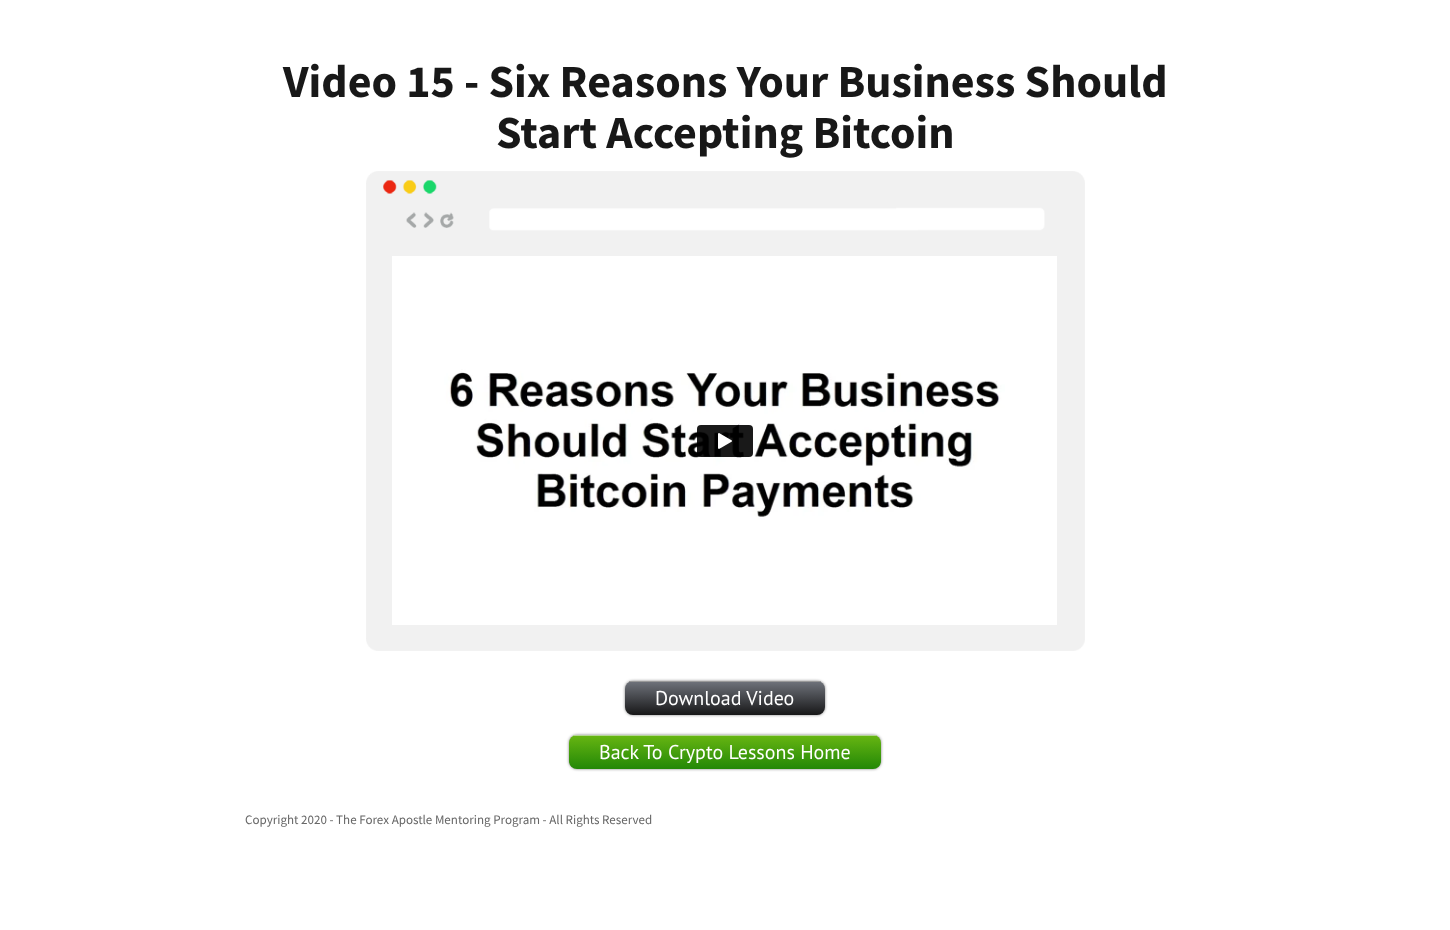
<?xml version="1.0" encoding="UTF-8"?>
<svg xmlns="http://www.w3.org/2000/svg" width="1450" height="930">
    <defs>
        <filter id="blur1" x="-50%" y="-200%" width="200%" height="500%"><feGaussianBlur stdDeviation="1.5"/></filter>
        <linearGradient id="g1" gradientUnits="userSpaceOnUse" x1="725" y1="681" x2="725" y2="715"><stop offset="0" stop-color="#70747C"/><stop offset="1" stop-color="#171718"/></linearGradient>
        <linearGradient id="g2" gradientUnits="userSpaceOnUse" x1="725" y1="735" x2="725" y2="769"><stop offset="0" stop-color="#68B612"/><stop offset="1" stop-color="#238807"/></linearGradient>
    </defs>
    <rect width="100%" height="100%" fill="#FFFFFF"/>
    <text x="283" y="97" font-family="Source Sans Pro" font-size="46" font-weight="700" fill="#181818">Video 15 - Six Reasons Your Business Should</text>
    <text x="496" y="148" font-family="Source Sans Pro" font-size="46" font-weight="700" fill="#181818">Start Accepting Bitcoin</text>
    <image x="366" y="171" width="719" height="480" href="img_01.png"/>
    <rect x="625" y="681" width="200" height="34" rx="8" fill="#000000" fill-opacity="0.5" filter="url(#blur1)"/>
    <rect x="625" y="681" width="200" height="34" rx="8" fill="url(#g1)"/>
    <rect x="629" y="681" width="192" height="1" fill="#999999"/>
    <text x="655" y="705" font-family="PT Sans" font-size="20" fill="#FFFFFF">Download Video</text>
    <rect x="569" y="735" width="312" height="34" rx="8" fill="#000000" fill-opacity="0.5" filter="url(#blur1)"/>
    <rect x="569" y="735" width="312" height="34" rx="8" fill="url(#g2)"/>
    <rect x="573" y="735" width="304" height="1" fill="#B4D694"/>
    <text x="599" y="759" font-family="PT Sans" font-size="20" fill="#FFFFFF">Back To Crypto Lessons Home</text>
    <text x="245" y="824" font-family="Source Sans Pro" font-size="13" fill="#666666">Copyright 2020 - The Forex Apostle Mentoring Program - All Rights Reserved</text>
</svg>
